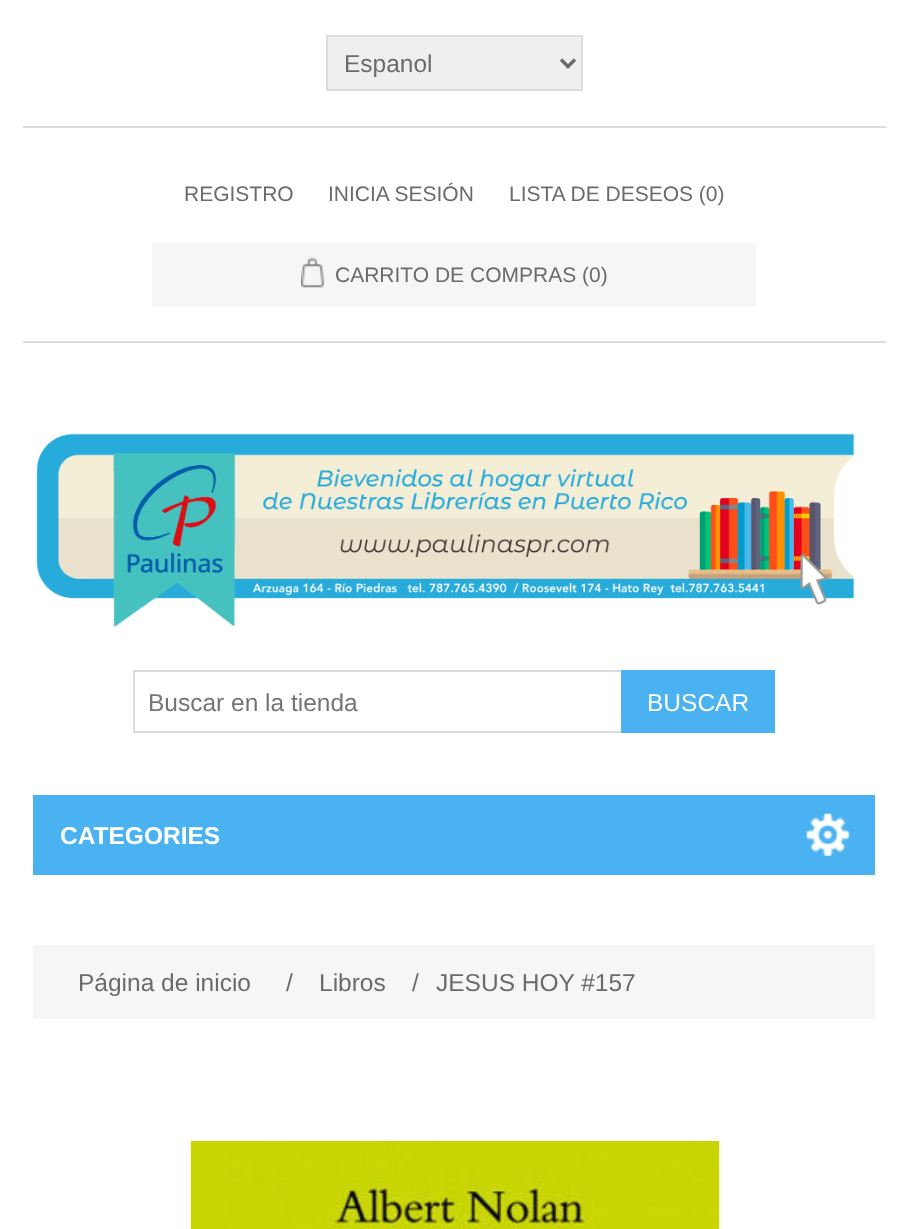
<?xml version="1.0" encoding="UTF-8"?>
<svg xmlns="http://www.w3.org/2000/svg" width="907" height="1229">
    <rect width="100%" height="100%" fill="#FFFFFF"/>
    <rect x="23" y="341" width="863" height="2" fill="#DDDDDD"/>
    <rect x="23" y="126" width="863" height="2" fill="#DDDDDD"/>
    <rect x="327" y="36" width="255" height="54" fill="#EFEFEF" stroke="#DDDDDD" stroke-width="2"/>
    <path d="M 561 59.5 L 568 66.5 L 575 59.5" fill="none" stroke="#6B6B6B" stroke-width="3.5"/>
    <text x="344" y="72" font-family="Liberation Sans" font-size="24.5" fill="#6B6B6B">Espanol</text>
    <text x="184" y="201" font-family="Liberation Sans" font-size="21" fill="#6B6B6B">REGISTRO</text>
    <text x="328" y="201" font-family="Liberation Sans" font-size="21" fill="#6B6B6B">INICIA SESIÓN</text>
    <text x="509" y="201" font-family="Liberation Sans" font-size="21" fill="#6B6B6B">LISTA DE DESEOS (0)</text>
    <rect x="152" y="243" width="604" height="63" fill="#F6F6F6"/>
    <image x="301" y="257" width="23" height="31" href="img_01.png"/>
    <text x="335" y="282" font-family="Liberation Sans" font-size="21" fill="#6B6B6B">CARRITO DE COMPRAS (0)</text>
    <image x="36" y="433" width="819" height="194" href="img_02.png"/>
    <rect x="134" y="671" width="488" height="61" fill="none" stroke="#DDDDDD" stroke-width="2"/>
    <text x="148" y="711" font-family="Liberation Sans" font-size="24.5" fill="#757575">Buscar en la tienda</text>
    <rect x="621" y="670" width="154" height="63" fill="#4AB2F1"/>
    <text x="647" y="711" font-family="Liberation Sans" font-size="24.5" fill="#FFFFFF">BUSCAR</text>
    <rect x="33" y="795" width="842" height="80" fill="#4AB2F1"/>
    <image x="806" y="813" width="44" height="43" href="img_03.png"/>
    <text x="60" y="844" font-family="Liberation Sans" font-size="24.5" font-weight="700" fill="#FFFFFF">CATEGORIES</text>
    <rect x="33" y="945" width="842" height="74" fill="#F6F6F6"/>
    <text x="78" y="991" font-family="Liberation Sans" font-size="24.5" fill="#6B6B6B">Página de inicio</text>
    <text x="286" y="991" font-family="Liberation Sans" font-size="24.5" fill="#6B6B6B">/</text>
    <text x="319" y="991" font-family="Liberation Sans" font-size="24.5" fill="#6B6B6B">Libros</text>
    <text x="412" y="991" font-family="Liberation Sans" font-size="24.5" fill="#6B6B6B">/</text>
    <text x="436" y="991" font-family="Liberation Sans" font-size="24.5" fill="#6B6B6B">JESUS HOY #157</text>
    <image x="190" y="1141" width="530" height="88" href="img_04.png"/>
</svg>
